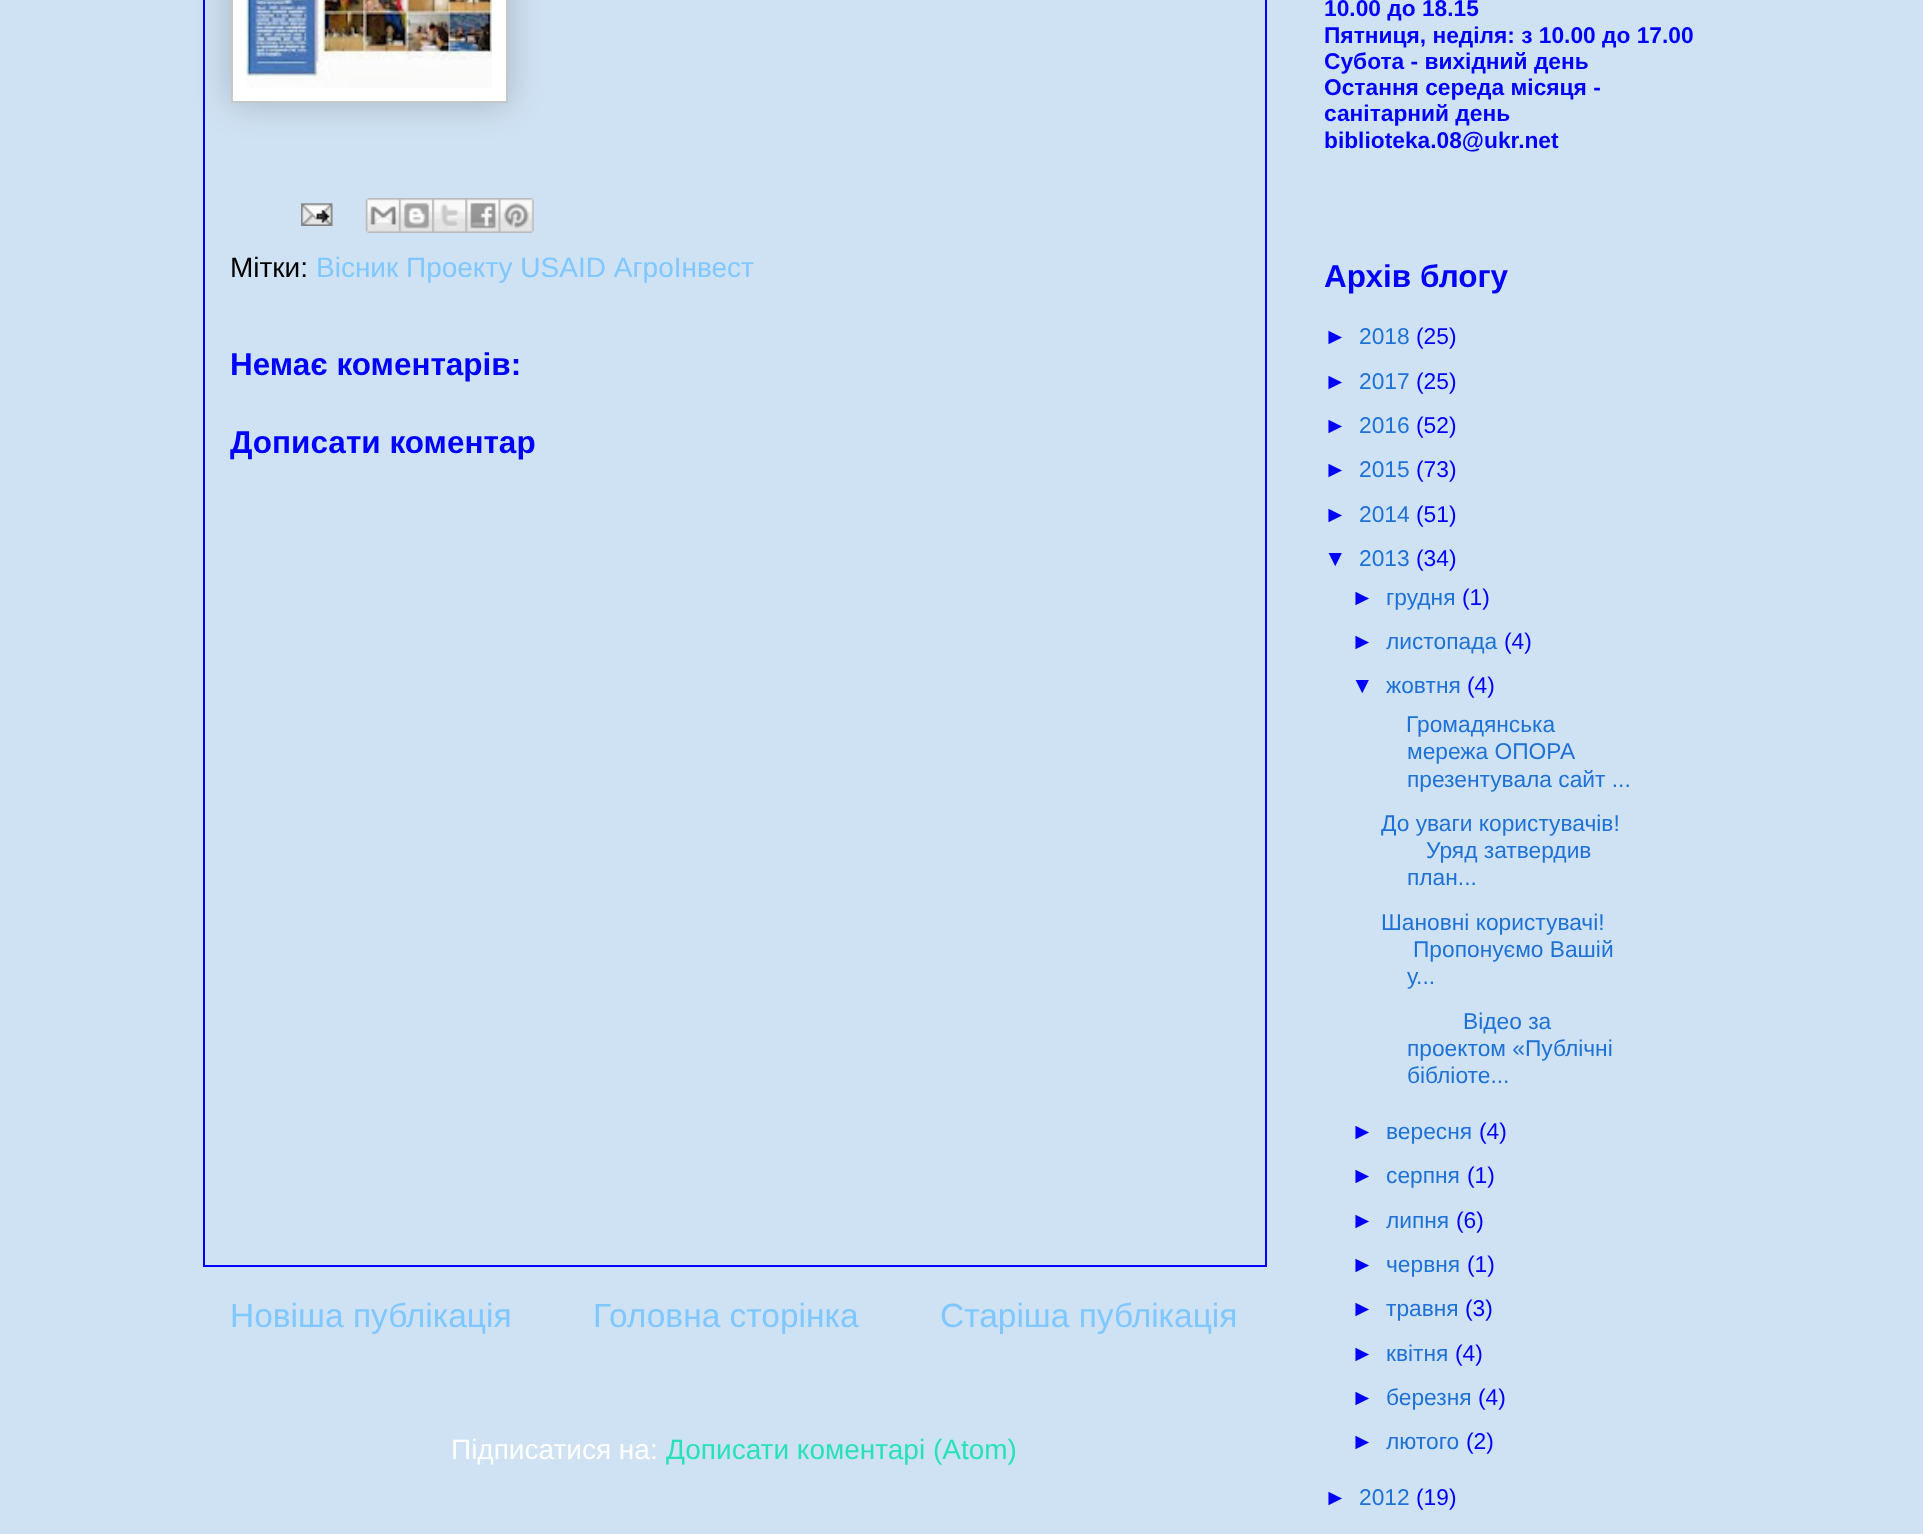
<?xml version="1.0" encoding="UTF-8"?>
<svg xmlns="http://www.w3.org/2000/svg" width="1923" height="1534">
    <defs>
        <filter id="blur1" x="-50%" y="-200%" width="200%" height="500%"><feGaussianBlur stdDeviation="17.5"/></filter>
    </defs>
    <rect width="100%" height="100%" fill="#CFE2F3"/>
    <rect x="204" y="-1" width="1062" height="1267" fill="none" stroke="#0000FF" stroke-width="2"/>
    <rect x="231" y="-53" width="277" height="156" fill="#000000" fill-opacity="0.2" filter="url(#blur1)"/>
    <rect x="232" y="-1" width="275" height="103" fill="#FFFFFF" stroke="#C7C7C7" stroke-width="2"/>
    <image x="246" y="0" width="246" height="88" href="img_01.png"/>
    <image x="301" y="203" width="32" height="23" href="img_02.png"/>
    <image x="365" y="198" width="34" height="35" href="img_03.png"/>
    <image x="399" y="198" width="34" height="35" href="img_04.png"/>
    <image x="432" y="198" width="34" height="35" href="img_05.png"/>
    <image x="465" y="198" width="34" height="35" href="img_06.png"/>
    <image x="498" y="198" width="36" height="35" href="img_07.png"/>
    <text x="230" y="277" font-family="Liberation Sans" font-size="28" fill="#000000">Мітки:</text>
    <text x="316" y="277" font-family="Liberation Sans" font-size="28" fill="#7FC7FF">Вісник Проекту USAID АгроІнвест</text>
    <text x="230" y="375" font-family="Liberation Sans" font-size="31.5" font-weight="700" fill="#0000FF">Немає коментарів:</text>
    <text x="230" y="453" font-family="Liberation Sans" font-size="31.5" font-weight="700" fill="#0000FF">Дописати коментар</text>
    <text x="230" y="1327" font-family="Liberation Sans" font-size="33.5" fill="#7FC7FF">Новіша публікація</text>
    <text x="593" y="1327" font-family="Liberation Sans" font-size="33.5" fill="#7FC7FF">Головна сторінка</text>
    <text x="940" y="1327" font-family="Liberation Sans" font-size="33.5" fill="#7FC7FF">Старіша публікація</text>
    <text x="451" y="1459" font-family="Liberation Sans" font-size="28" fill="#FFFFFF">Підписатися на:</text>
    <text x="666" y="1459" font-family="Liberation Sans" font-size="28" fill="#28E1BB">Дописати коментарі (Atom)</text>
    <text font-family="Liberation Sans" font-size="22.75" font-weight="700" fill="#0000FF">
        <tspan x="1324" y="16">10.00 до 18.15</tspan>
        <tspan x="1324" y="43">Пятниця, неділя: з 10.00 до 17.00</tspan>
        <tspan x="1324" y="69">Субота - вихідний день</tspan>
        <tspan x="1324" y="95">Остання середа місяця -</tspan>
        <tspan x="1324" y="121">санітарний день</tspan>
        <tspan x="1324" y="148">biblioteka.08@ukr.net</tspan>
    </text>
    <text x="1324" y="287" font-family="Liberation Sans" font-size="31.5" font-weight="700" fill="#0000FF">Архів блогу</text>
    <text x="1324" y="344" font-family="Liberation Sans" font-size="22.75" fill="#0000FF">►</text>
    <text x="1359" y="344" font-family="Liberation Sans" font-size="22.75" fill="#1E72D6">2018</text>
    <text x="1416" y="344" font-family="Liberation Sans" font-size="22.75" fill="#0000FF">(25)</text>
    <text x="1324" y="389" font-family="Liberation Sans" font-size="22.75" fill="#0000FF">►</text>
    <text x="1359" y="389" font-family="Liberation Sans" font-size="22.75" fill="#1E72D6">2017</text>
    <text x="1416" y="389" font-family="Liberation Sans" font-size="22.75" fill="#0000FF">(25)</text>
    <text x="1324" y="433" font-family="Liberation Sans" font-size="22.75" fill="#0000FF">►</text>
    <text x="1359" y="433" font-family="Liberation Sans" font-size="22.75" fill="#1E72D6">2016</text>
    <text x="1416" y="433" font-family="Liberation Sans" font-size="22.75" fill="#0000FF">(52)</text>
    <text x="1324" y="477" font-family="Liberation Sans" font-size="22.75" fill="#0000FF">►</text>
    <text x="1359" y="477" font-family="Liberation Sans" font-size="22.75" fill="#1E72D6">2015</text>
    <text x="1416" y="477" font-family="Liberation Sans" font-size="22.75" fill="#0000FF">(73)</text>
    <text x="1324" y="522" font-family="Liberation Sans" font-size="22.75" fill="#0000FF">►</text>
    <text x="1359" y="522" font-family="Liberation Sans" font-size="22.75" fill="#1E72D6">2014</text>
    <text x="1416" y="522" font-family="Liberation Sans" font-size="22.75" fill="#0000FF">(51)</text>
    <text x="1324" y="566" font-family="Liberation Sans" font-size="22.75" fill="#0000FF">▼</text>
    <text x="1359" y="566" font-family="Liberation Sans" font-size="22.75" fill="#1E72D6">2013</text>
    <text x="1416" y="566" font-family="Liberation Sans" font-size="22.75" fill="#0000FF">(34)</text>
    <text x="1351" y="605" font-family="Liberation Sans" font-size="22.75" fill="#0000FF">►</text>
    <text x="1386" y="605" font-family="Liberation Sans" font-size="22.75" fill="#1E72D6">грудня</text>
    <text x="1462" y="605" font-family="Liberation Sans" font-size="22.75" fill="#0000FF">(1)</text>
    <text x="1351" y="649" font-family="Liberation Sans" font-size="22.75" fill="#0000FF">►</text>
    <text x="1386" y="649" font-family="Liberation Sans" font-size="22.75" fill="#1E72D6">листопада</text>
    <text x="1504" y="649" font-family="Liberation Sans" font-size="22.75" fill="#0000FF">(4)</text>
    <text x="1351" y="693" font-family="Liberation Sans" font-size="22.75" fill="#0000FF">▼</text>
    <text x="1386" y="693" font-family="Liberation Sans" font-size="22.75" fill="#1E72D6">жовтня</text>
    <text x="1467" y="693" font-family="Liberation Sans" font-size="22.75" fill="#0000FF">(4)</text>
    <text x="1406" y="732" font-family="Liberation Sans" font-size="22.75" fill="#1E72D6">Громадянська</text>
    <text font-family="Liberation Sans" font-size="22.75" fill="#1E72D6">
        <tspan x="1407" y="759">мережа ОПОРА</tspan>
        <tspan x="1407" y="787">презентувала сайт ...</tspan>
    </text>
    <text x="1381" y="831" font-family="Liberation Sans" font-size="22.75" fill="#1E72D6">До уваги користувачів!</text>
    <text x="1426" y="858" font-family="Liberation Sans" font-size="22.75" fill="#1E72D6">Уряд затвердив</text>
    <text x="1407" y="885" font-family="Liberation Sans" font-size="22.75" fill="#1E72D6">план...</text>
    <text x="1381" y="930" font-family="Liberation Sans" font-size="22.75" fill="#1E72D6">Шановні користувачі!</text>
    <text x="1413" y="957" font-family="Liberation Sans" font-size="22.75" fill="#1E72D6">Пропонуємо Вашій</text>
    <text x="1407" y="984" font-family="Liberation Sans" font-size="22.75" fill="#1E72D6">у...</text>
    <text x="1463" y="1029" font-family="Liberation Sans" font-size="22.75" fill="#1E72D6">Відео за</text>
    <text font-family="Liberation Sans" font-size="22.75" fill="#1E72D6">
        <tspan x="1407" y="1056">проектом «Публічні</tspan>
        <tspan x="1407" y="1083">бібліоте...</tspan>
    </text>
    <text x="1351" y="1139" font-family="Liberation Sans" font-size="22.75" fill="#0000FF">►</text>
    <text x="1386" y="1139" font-family="Liberation Sans" font-size="22.75" fill="#1E72D6">вересня</text>
    <text x="1479" y="1139" font-family="Liberation Sans" font-size="22.75" fill="#0000FF">(4)</text>
    <text x="1351" y="1183" font-family="Liberation Sans" font-size="22.75" fill="#0000FF">►</text>
    <text x="1386" y="1183" font-family="Liberation Sans" font-size="22.75" fill="#1E72D6">серпня</text>
    <text x="1467" y="1183" font-family="Liberation Sans" font-size="22.75" fill="#0000FF">(1)</text>
    <text x="1351" y="1228" font-family="Liberation Sans" font-size="22.75" fill="#0000FF">►</text>
    <text x="1386" y="1228" font-family="Liberation Sans" font-size="22.75" fill="#1E72D6">липня</text>
    <text x="1456" y="1228" font-family="Liberation Sans" font-size="22.75" fill="#0000FF">(6)</text>
    <text x="1351" y="1272" font-family="Liberation Sans" font-size="22.75" fill="#0000FF">►</text>
    <text x="1386" y="1272" font-family="Liberation Sans" font-size="22.75" fill="#1E72D6">червня</text>
    <text x="1467" y="1272" font-family="Liberation Sans" font-size="22.75" fill="#0000FF">(1)</text>
    <text x="1351" y="1316" font-family="Liberation Sans" font-size="22.75" fill="#0000FF">►</text>
    <text x="1386" y="1316" font-family="Liberation Sans" font-size="22.75" fill="#1E72D6">травня</text>
    <text x="1465" y="1316" font-family="Liberation Sans" font-size="22.75" fill="#0000FF">(3)</text>
    <text x="1351" y="1361" font-family="Liberation Sans" font-size="22.75" fill="#0000FF">►</text>
    <text x="1386" y="1361" font-family="Liberation Sans" font-size="22.75" fill="#1E72D6">квітня</text>
    <text x="1455" y="1361" font-family="Liberation Sans" font-size="22.75" fill="#0000FF">(4)</text>
    <text x="1351" y="1405" font-family="Liberation Sans" font-size="22.75" fill="#0000FF">►</text>
    <text x="1386" y="1405" font-family="Liberation Sans" font-size="22.75" fill="#1E72D6">березня</text>
    <text x="1478" y="1405" font-family="Liberation Sans" font-size="22.75" fill="#0000FF">(4)</text>
    <text x="1351" y="1449" font-family="Liberation Sans" font-size="22.75" fill="#0000FF">►</text>
    <text x="1386" y="1449" font-family="Liberation Sans" font-size="22.75" fill="#1E72D6">лютого</text>
    <text x="1466" y="1449" font-family="Liberation Sans" font-size="22.75" fill="#0000FF">(2)</text>
    <text x="1324" y="1505" font-family="Liberation Sans" font-size="22.75" fill="#0000FF">►</text>
    <text x="1359" y="1505" font-family="Liberation Sans" font-size="22.75" fill="#1E72D6">2012</text>
    <text x="1416" y="1505" font-family="Liberation Sans" font-size="22.75" fill="#0000FF">(19)</text>
</svg>
